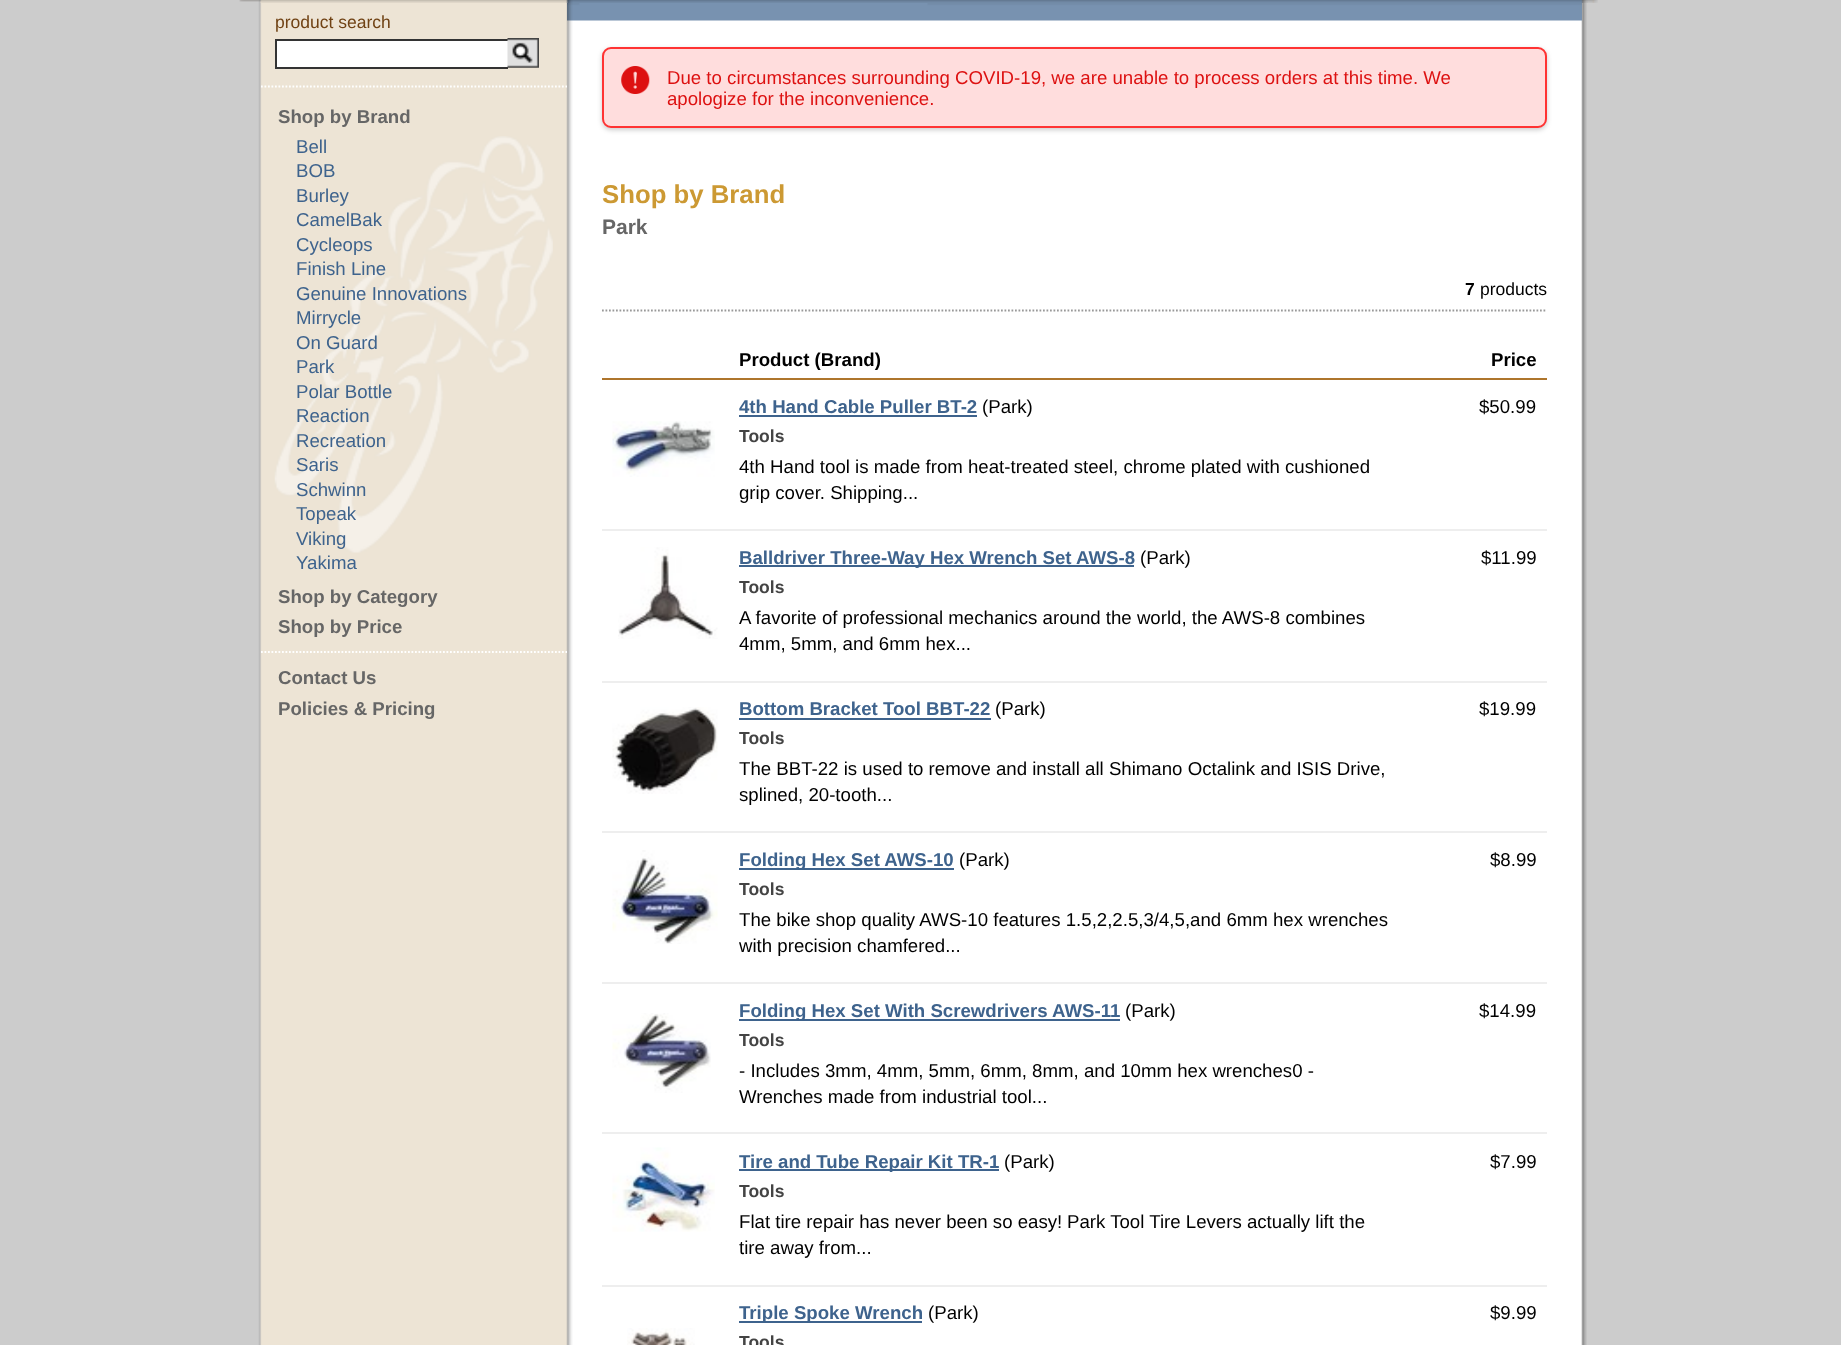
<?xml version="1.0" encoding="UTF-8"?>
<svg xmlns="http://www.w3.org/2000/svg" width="1841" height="1345">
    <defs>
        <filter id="blur1" x="-50%" y="-200%" width="200%" height="500%"><feGaussianBlur stdDeviation="2.5"/></filter>
    </defs>
    <rect width="100%" height="100%" fill="#CCCCCC"/>
    <image x="258" y="0" width="1329" height="1345" href="img_01.png"/>
    <image x="239" y="0" width="1359" height="3" href="img_02.png"/>
    <image x="274" y="136" width="279" height="417" href="img_03.png"/>
    <path d="M 261 86.5 H 567" fill="none" stroke="#FFFFFF" stroke-width="1.8" stroke-dasharray="1.75 1.75"/>
    <text x="275" y="28" font-family="Liberation Sans" font-size="17.5" fill="#704214">product search</text>
    <rect x="277" y="41" width="231" height="26" fill="#FFFFFF"/>
    <rect x="275" y="39" width="233" height="2" fill="#333333"/>
    <rect x="275" y="67" width="233" height="2" fill="#333333"/>
    <rect x="275" y="39" width="2" height="29" fill="#333333"/>
    <image x="507" y="38" width="32" height="30" href="img_04.png"/>
    <text x="278" y="123" font-family="Liberation Sans" font-size="18.65" font-weight="700" fill="#666666">Shop by Brand</text>
    <text font-family="Liberation Sans" font-size="18.65" fill="#3E638D">
        <tspan x="296" y="153">Bell</tspan>
        <tspan x="296" y="177">BOB</tspan>
        <tspan x="296" y="202">Burley</tspan>
        <tspan x="296" y="226">CamelBak</tspan>
        <tspan x="296" y="251">Cycleops</tspan>
        <tspan x="296" y="275">Finish Line</tspan>
        <tspan x="296" y="300">Genuine Innovations</tspan>
        <tspan x="296" y="324">Mirrycle</tspan>
        <tspan x="296" y="349">On Guard</tspan>
        <tspan x="296" y="373">Park</tspan>
        <tspan x="296" y="398">Polar Bottle</tspan>
        <tspan x="296" y="422">Reaction</tspan>
        <tspan x="296" y="447">Recreation</tspan>
        <tspan x="296" y="471">Saris</tspan>
        <tspan x="296" y="496">Schwinn</tspan>
        <tspan x="296" y="520">Topeak</tspan>
        <tspan x="296" y="545">Viking</tspan>
        <tspan x="296" y="569">Yakima</tspan>
    </text>
    <text font-family="Liberation Sans" font-size="18.65" font-weight="700" fill="#666666">
        <tspan x="278" y="603">Shop by Category</tspan>
        <tspan x="278" y="633">Shop by Price</tspan>
    </text>
    <path d="M 261 652 H 567" fill="none" stroke="#FFFFFF" stroke-width="1.8" stroke-dasharray="1.75 1.75"/>
    <text font-family="Liberation Sans" font-size="18.65" font-weight="700" fill="#666666">
        <tspan x="278" y="684">Contact Us</tspan>
        <tspan x="278" y="715">Policies &amp; Pricing</tspan>
    </text>
    <image x="567" y="3" width="1015" height="18" href="img_05.png"/>
    <rect x="602" y="49" width="945" height="81" rx="9" fill="#000000" fill-opacity="0.2" filter="url(#blur1)"/>
    <rect x="603" y="48" width="943" height="79" rx="8" fill="#FFDDDD" stroke="#FF3333" stroke-width="2"/>
    <image x="621" y="66" width="29" height="28" href="img_06.png"/>
    <text font-family="Liberation Sans" font-size="18.65" fill="#DD1111">
        <tspan x="667" y="84">Due to circumstances surrounding COVID-19, we are unable to process orders at this time. We</tspan>
        <tspan x="667" y="105">apologize for the inconvenience.</tspan>
    </text>
    <text x="602" y="203" font-family="Liberation Sans" font-size="25.75" font-weight="700" fill="#CC9933">Shop by Brand</text>
    <text x="602" y="234" font-family="Liberation Sans" font-size="21" font-weight="700" fill="#666666">Park</text>
    <path d="M 602 310.5 H 1547" fill="none" stroke="#999999" stroke-width="1.8" stroke-dasharray="1.75 1.75"/>
    <text x="1465" y="295" font-family="Liberation Sans" font-size="17.5" font-weight="700" fill="#000000">7</text>
    <text x="1480" y="295" font-family="Liberation Sans" font-size="17.5" fill="#000000">products</text>
    <text x="739" y="366" font-family="Liberation Sans" font-size="18.65" font-weight="700" fill="#000000">Product (Brand)</text>
    <text x="1491" y="366" font-family="Liberation Sans" font-size="18.65" font-weight="700" fill="#000000">Price</text>
    <rect x="602" y="378" width="945" height="2" fill="#AE752C"/>
    <text x="739" y="413" font-family="Liberation Sans" font-size="18.65" font-weight="700" fill="#3E638D">4th Hand Cable Puller BT-2</text>
    <rect x="739" y="415" width="238" height="2" fill="#3E638D"/>
    <text x="982" y="413" font-family="Liberation Sans" font-size="18.65" fill="#000000">(Park)</text>
    <text x="739" y="442" font-family="Liberation Sans" font-size="17.5" font-weight="700" fill="#444444">Tools</text>
    <text font-family="Liberation Sans" font-size="18.65" fill="#000000">
        <tspan x="739" y="473">4th Hand tool is made from heat-treated steel, chrome plated with cushioned</tspan>
        <tspan x="739" y="499">grip cover. Shipping...</tspan>
    </text>
    <text x="1479" y="413" font-family="Liberation Sans" font-size="18.65" fill="#000000">$50.99</text>
    <rect x="602" y="529" width="945" height="2" fill="#EEEEEE"/>
    <image x="612" y="421" width="103" height="56" href="img_07.png"/>
    <rect x="602" y="681" width="945" height="2" fill="#EEEEEE"/>
    <image x="618" y="547" width="100" height="92" href="img_08.png"/>
    <rect x="739" y="565" width="395" height="2" fill="#3E638D"/>
    <text x="739" y="564" font-family="Liberation Sans" font-size="18.65" font-weight="700" fill="#3E638D">Balldriver Three-Way Hex Wrench Set AWS-8</text>
    <text x="1140" y="564" font-family="Liberation Sans" font-size="18.65" fill="#000000">(Park)</text>
    <text x="739" y="593" font-family="Liberation Sans" font-size="17.5" font-weight="700" fill="#444444">Tools</text>
    <text font-family="Liberation Sans" font-size="18.65" fill="#000000">
        <tspan x="739" y="624">A favorite of professional mechanics around the world, the AWS-8 combines</tspan>
        <tspan x="739" y="650">4mm, 5mm, and 6mm hex...</tspan>
    </text>
    <text x="1481" y="564" font-family="Liberation Sans" font-size="18.65" fill="#000000">$11.99</text>
    <text x="739" y="715" font-family="Liberation Sans" font-size="18.65" font-weight="700" fill="#3E638D">Bottom Bracket Tool BBT-22</text>
    <rect x="739" y="718" width="252" height="2" fill="#3E638D"/>
    <text x="995" y="715" font-family="Liberation Sans" font-size="18.65" fill="#000000">(Park)</text>
    <text x="739" y="744" font-family="Liberation Sans" font-size="17.5" font-weight="700" fill="#444444">Tools</text>
    <text font-family="Liberation Sans" font-size="18.65" fill="#000000">
        <tspan x="739" y="775">The BBT-22 is used to remove and install all Shimano Octalink and ISIS Drive,</tspan>
        <tspan x="739" y="801">splined, 20-tooth...</tspan>
    </text>
    <text x="1479" y="715" font-family="Liberation Sans" font-size="18.65" fill="#000000">$19.99</text>
    <rect x="602" y="831" width="945" height="2" fill="#EEEEEE"/>
    <image x="612" y="707" width="106" height="87" href="img_09.png"/>
    <rect x="602" y="982" width="945" height="2" fill="#EEEEEE"/>
    <image x="612" y="850" width="106" height="94" href="img_10.png"/>
    <rect x="739" y="868" width="215" height="2" fill="#3E638D"/>
    <text x="739" y="866" font-family="Liberation Sans" font-size="18.65" font-weight="700" fill="#3E638D">Folding Hex Set AWS-10</text>
    <text x="959" y="866" font-family="Liberation Sans" font-size="18.65" fill="#000000">(Park)</text>
    <text x="739" y="895" font-family="Liberation Sans" font-size="17.5" font-weight="700" fill="#444444">Tools</text>
    <text font-family="Liberation Sans" font-size="18.65" fill="#000000">
        <tspan x="739" y="926">The bike shop quality AWS-10 features 1.5,2,2.5,3/4,5,and 6mm hex wrenches</tspan>
        <tspan x="739" y="952">with precision chamfered...</tspan>
    </text>
    <text x="1490" y="866" font-family="Liberation Sans" font-size="18.65" fill="#000000">$8.99</text>
    <rect x="739" y="1019" width="381" height="2" fill="#3E638D"/>
    <text x="739" y="1017" font-family="Liberation Sans" font-size="18.65" font-weight="700" fill="#3E638D">Folding Hex Set With Screwdrivers AWS-11</text>
    <text x="1125" y="1017" font-family="Liberation Sans" font-size="18.65" fill="#000000">(Park)</text>
    <text x="739" y="1046" font-family="Liberation Sans" font-size="17.5" font-weight="700" fill="#444444">Tools</text>
    <text font-family="Liberation Sans" font-size="18.65" fill="#000000">
        <tspan x="739" y="1077">- Includes 3mm, 4mm, 5mm, 6mm, 8mm, and 10mm hex wrenches0 -</tspan>
        <tspan x="739" y="1103">Wrenches made from industrial tool...</tspan>
    </text>
    <text x="1479" y="1017" font-family="Liberation Sans" font-size="18.65" fill="#000000">$14.99</text>
    <rect x="602" y="1132" width="945" height="2" fill="#EEEEEE"/>
    <image x="612" y="1013" width="99" height="80" href="img_11.png"/>
    <rect x="602" y="1285" width="945" height="2" fill="#EEEEEE"/>
    <image x="612" y="1147" width="103" height="85" href="img_12.png"/>
    <rect x="739" y="1169" width="260" height="2" fill="#3E638D"/>
    <text x="739" y="1168" font-family="Liberation Sans" font-size="18.65" font-weight="700" fill="#3E638D">Tire and Tube Repair Kit TR-1</text>
    <text x="1004" y="1168" font-family="Liberation Sans" font-size="18.65" fill="#000000">(Park)</text>
    <text x="739" y="1197" font-family="Liberation Sans" font-size="17.5" font-weight="700" fill="#444444">Tools</text>
    <text x="739" y="1228" font-family="Liberation Sans" font-size="18.65" fill="#000000">Flat tire repair has never been so easy!</text>
    <text x="1067" y="1228" font-family="Liberation Sans" font-size="18.65" fill="#000000">Park Tool Tire Levers actually lift the</text>
    <text x="739" y="1254" font-family="Liberation Sans" font-size="18.65" fill="#000000">tire away from...</text>
    <text x="1490" y="1168" font-family="Liberation Sans" font-size="18.65" fill="#000000">$7.99</text>
    <rect x="739" y="1321" width="183" height="2" fill="#3E638D"/>
    <text x="739" y="1319" font-family="Liberation Sans" font-size="18.65" font-weight="700" fill="#3E638D">Triple Spoke Wrench</text>
    <text x="928" y="1319" font-family="Liberation Sans" font-size="18.65" fill="#000000">(Park)</text>
    <text x="739" y="1348" font-family="Liberation Sans" font-size="17.5" font-weight="700" fill="#444444">Tools</text>
    <text x="1490" y="1319" font-family="Liberation Sans" font-size="18.65" fill="#000000">$9.99</text>
    <image x="627" y="1328" width="68" height="17" href="img_13.png"/>
</svg>
